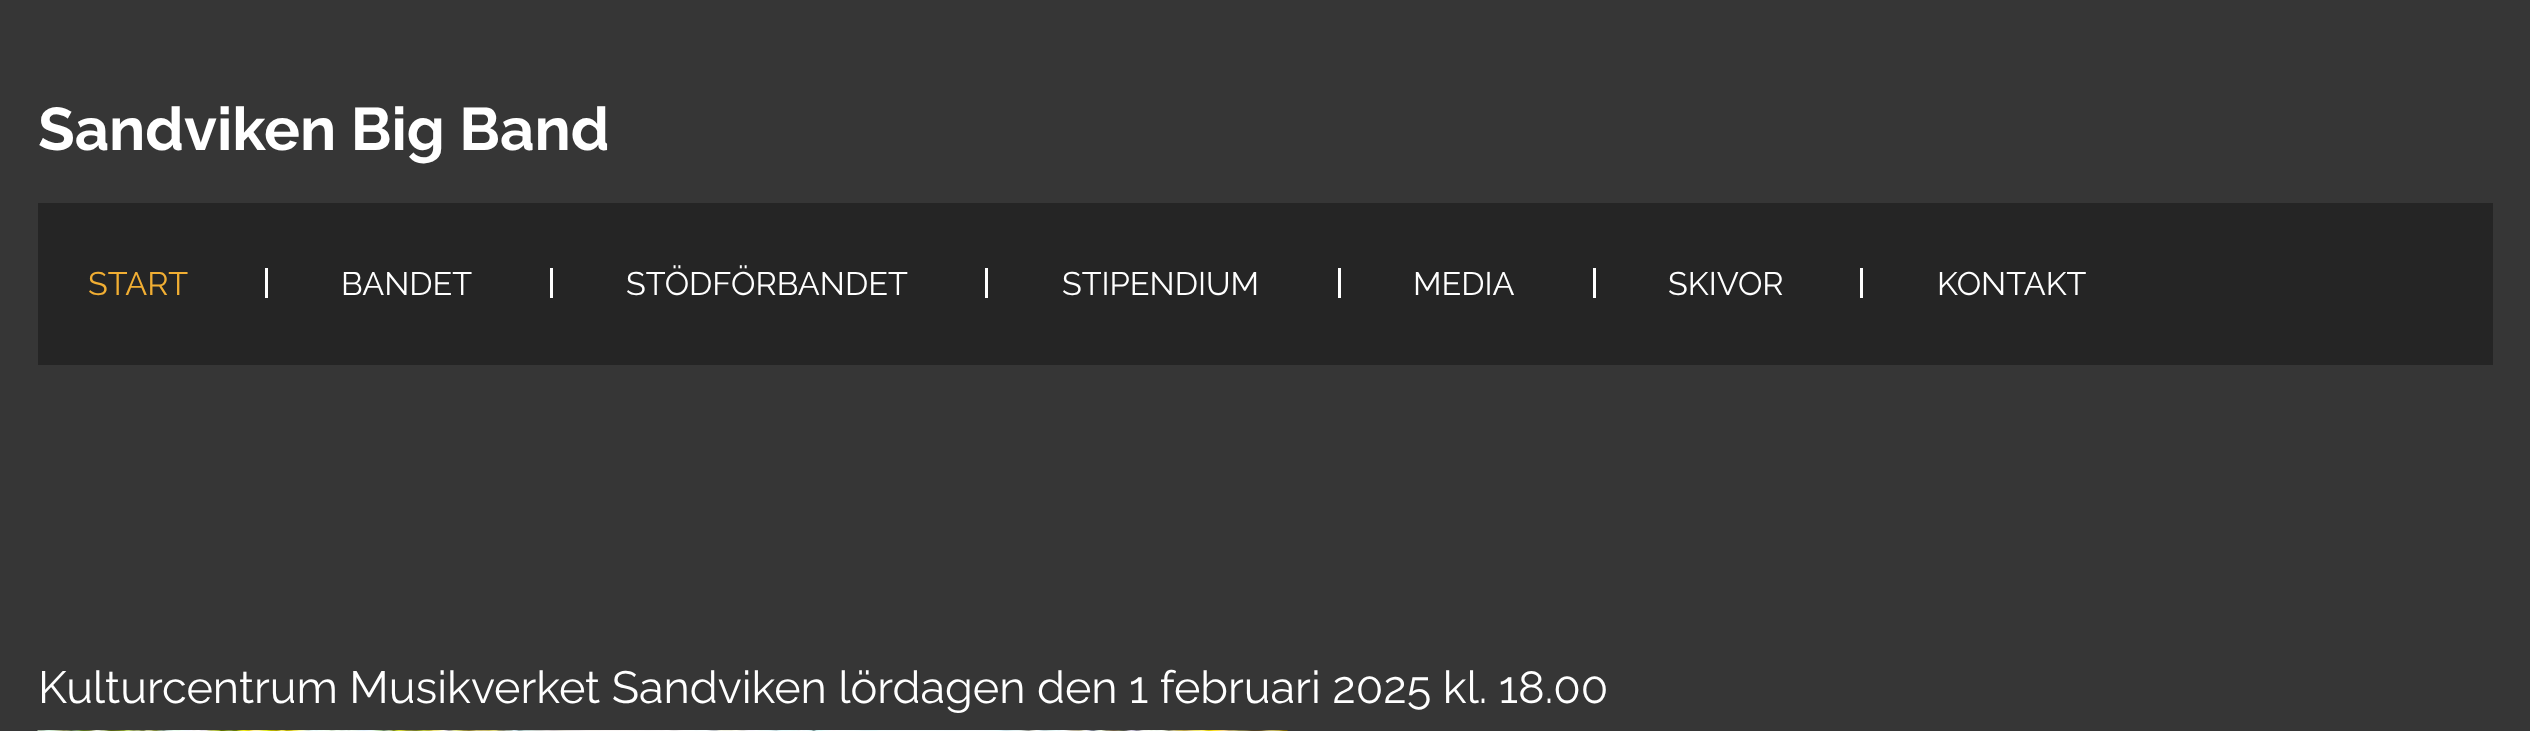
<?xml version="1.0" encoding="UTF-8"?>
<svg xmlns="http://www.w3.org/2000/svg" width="2530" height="731">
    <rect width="100%" height="100%" fill="#363636"/>
    <text x="38" y="150" font-family="Raleway" font-size="60" font-weight="700" fill="#FFFFFF">Sandviken Big Band</text>
    <rect x="38" y="203" width="2455" height="162" fill="#252525"/>
    <text x="88" y="295" font-family="Raleway" font-size="32.5" fill="#F1AE33">START</text>
    <rect x="265" y="268" width="3" height="30" fill="#FFFFFF"/>
    <text x="341" y="295" font-family="Raleway" font-size="32.5" fill="#FFFFFF">BANDET</text>
    <rect x="550" y="268" width="3" height="30" fill="#FFFFFF"/>
    <text x="626" y="295" font-family="Raleway" font-size="32.5" fill="#FFFFFF">STÖDFÖRBANDET</text>
    <rect x="985" y="268" width="3" height="30" fill="#FFFFFF"/>
    <text x="1062" y="295" font-family="Raleway" font-size="32.5" fill="#FFFFFF">STIPENDIUM</text>
    <rect x="1338" y="268" width="3" height="30" fill="#FFFFFF"/>
    <text x="1413" y="295" font-family="Raleway" font-size="32.5" fill="#FFFFFF">MEDIA</text>
    <rect x="1593" y="268" width="3" height="30" fill="#FFFFFF"/>
    <text x="1668" y="295" font-family="Raleway" font-size="32.5" fill="#FFFFFF">SKIVOR</text>
    <rect x="1860" y="268" width="3" height="30" fill="#FFFFFF"/>
    <text x="1937" y="295" font-family="Raleway" font-size="32.5" fill="#FFFFFF">KONTAKT</text>
    <text x="38" y="703" font-family="Raleway" font-size="45" fill="#FFFFFF">Kulturcentrum Musikverket Sandviken lördagen den 1 februari 2025 kl. 18.00</text>
    <image x="37" y="730" width="1251" height="1" href="img_01.png"/>
</svg>
